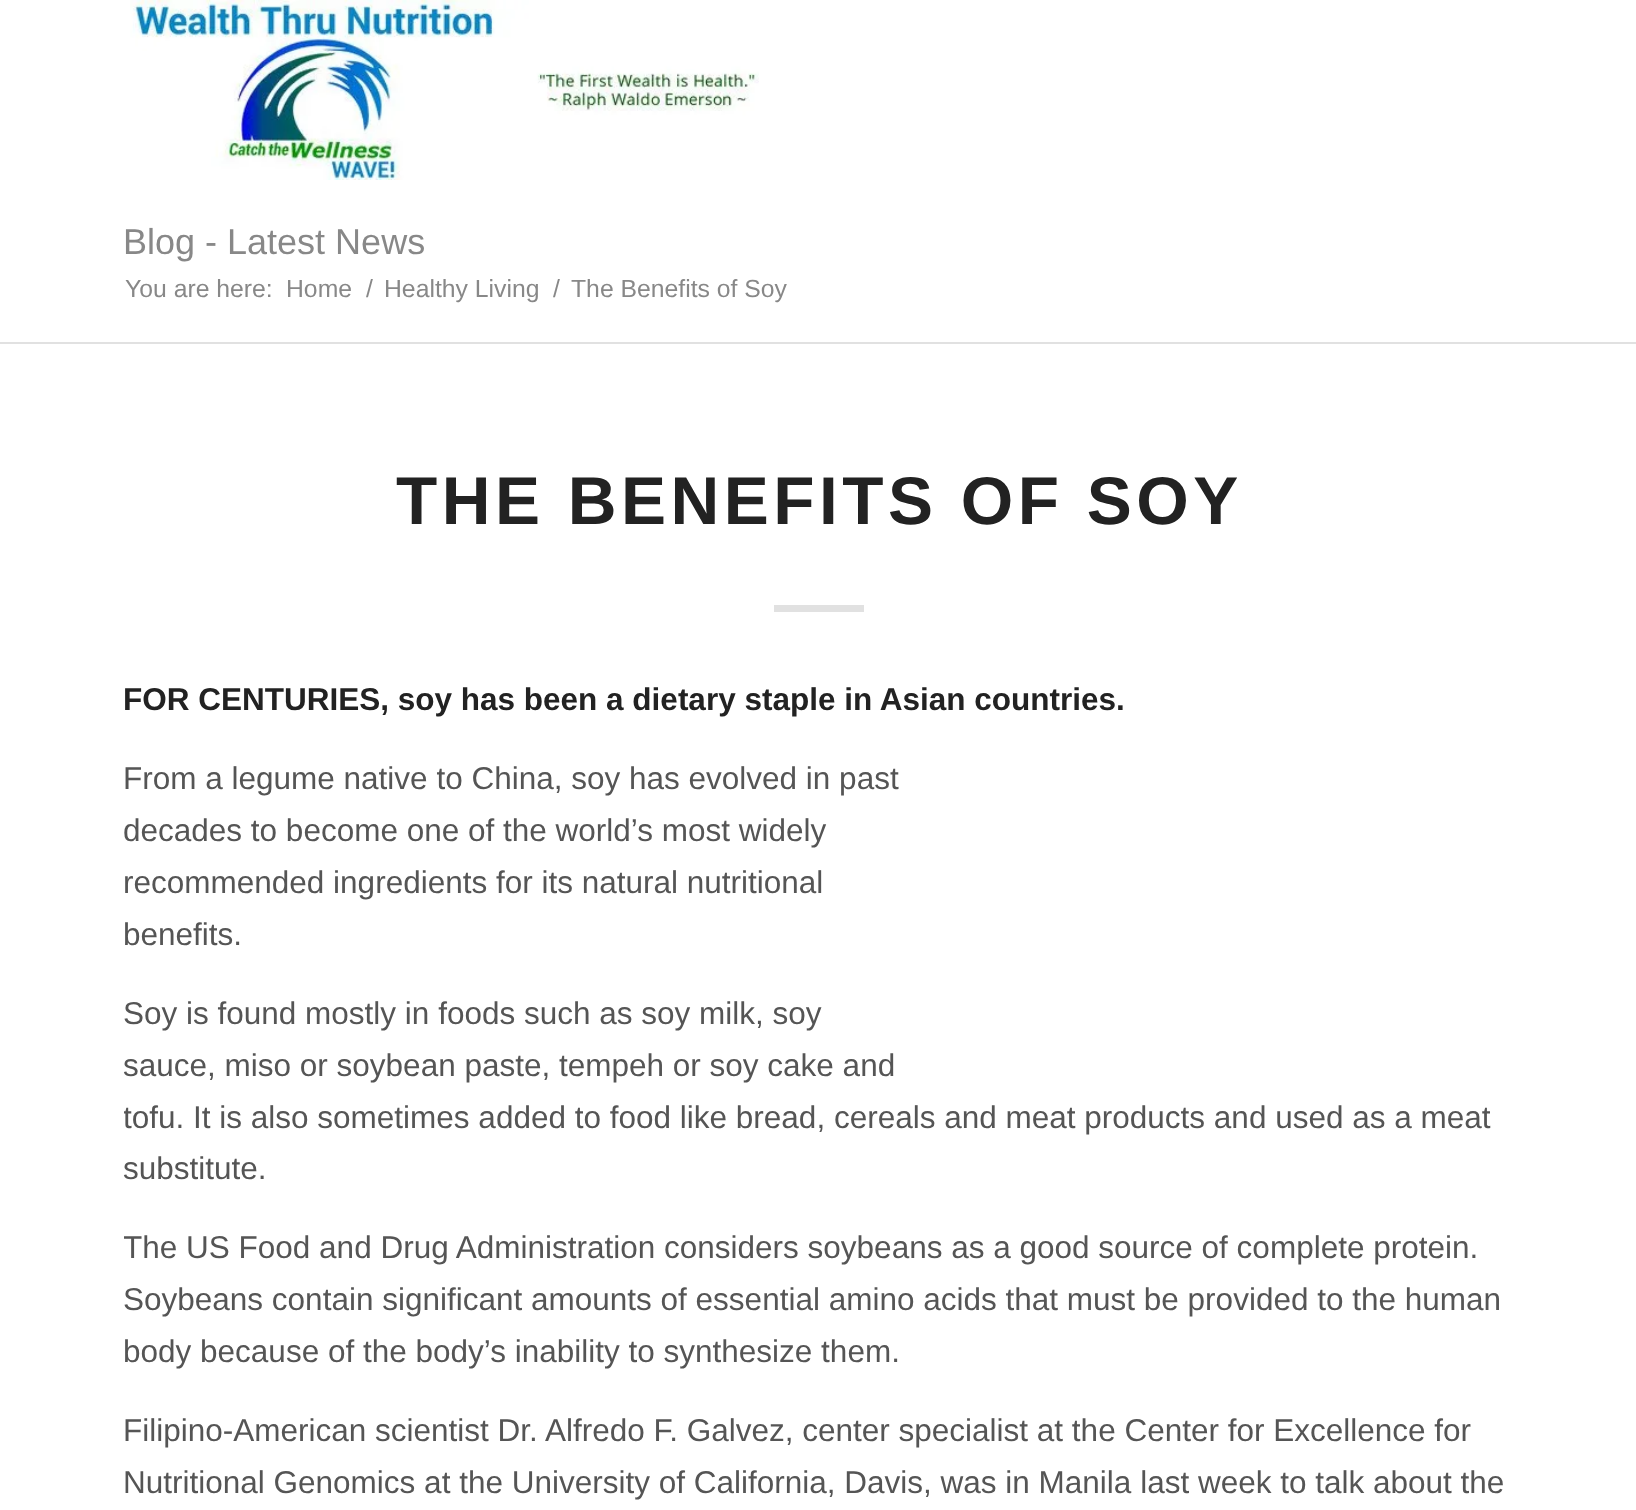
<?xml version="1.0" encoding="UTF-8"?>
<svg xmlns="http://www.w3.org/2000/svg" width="1636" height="1510">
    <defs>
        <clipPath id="clip1"><rect x="124" y="457" width="1390" height="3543"/></clipPath>
    </defs>
    <rect width="100%" height="100%" fill="#FFFFFF"/>
    <image x="130" y="0" width="629" height="180" href="img_01.png"/>
    <text x="123" y="254" font-family="Liberation Sans" font-size="36" fill="#888888">Blog - Latest News</text>
    <text x="125" y="297" font-family="Liberation Sans" font-size="24.75" fill="#888888">You are here:</text>
    <text x="286" y="297" font-family="Liberation Sans" font-size="24.75" fill="#888888">Home</text>
    <text x="366" y="297" font-family="Liberation Sans" font-size="24.75" fill="#888888">/</text>
    <text x="384" y="297" font-family="Liberation Sans" font-size="24.75" fill="#888888">Healthy Living</text>
    <text x="553" y="297" font-family="Liberation Sans" font-size="24.75" fill="#888888">/</text>
    <text x="571" y="297" font-family="Liberation Sans" font-size="24.75" fill="#888888">The Benefits of Soy</text>
    <rect x="0" y="342" width="1636" height="2" fill="#E1E1E1"/>
    <text x="396" y="524" font-family="Liberation Sans" font-size="67.5" font-weight="700" letter-spacing="4.5" fill="#222222">THE BENEFITS OF SOY</text>
    <rect x="774" y="605" width="90" height="7" fill="#E1E1E1"/>
    <text x="123" y="710" font-family="Liberation Sans" font-size="31.5" font-weight="700" fill="#222222">FOR CENTURIES, soy has been a dietary staple in Asian countries.</text>
    <text font-family="Liberation Sans" font-size="31.5" fill="#555555">
        <tspan x="123" y="789">From a legume native to China, soy has evolved in past</tspan>
        <tspan x="123" y="841">decades to become one of the world’s most widely</tspan>
        <tspan x="123" y="893">recommended ingredients for its natural nutritional</tspan>
        <tspan x="123" y="945">benefits.</tspan>
    </text>
    <text font-family="Liberation Sans" font-size="31.5" fill="#555555">
        <tspan x="123" y="1024">Soy is found mostly in foods such as soy milk, soy</tspan>
        <tspan x="123" y="1076">sauce, miso or soybean paste, tempeh or soy cake and</tspan>
    </text>
    <g clip-path="url(#clip1)">
        <text x="123" y="1128" font-family="Liberation Sans" font-size="31.5" fill="#555555">tofu. It is also sometimes added to food like bread, cereals and meat products and used as a meat</text>
    </g>
    <text x="123" y="1179" font-family="Liberation Sans" font-size="31.5" fill="#555555">substitute.</text>
    <g clip-path="url(#clip1)">
        <text x="123" y="1258" font-family="Liberation Sans" font-size="31.5" fill="#555555">The US Food and Drug Administration considers soybeans as a good source of complete protein.</text>
    </g>
    <text font-family="Liberation Sans" font-size="31.5" fill="#555555">
        <tspan x="123" y="1310">Soybeans contain significant amounts of essential amino acids that must be provided to the human</tspan>
        <tspan x="123" y="1362">body because of the body’s inability to synthesize them.</tspan>
    </text>
    <text font-family="Liberation Sans" font-size="31.5" fill="#555555">
        <tspan x="123" y="1441">Filipino-American scientist Dr. Alfredo F. Galvez, center specialist at the Center for Excellence for</tspan>
        <tspan x="123" y="1493">Nutritional Genomics at the University of California, Davis, was in Manila last week to talk about the</tspan>
    </text>
</svg>
